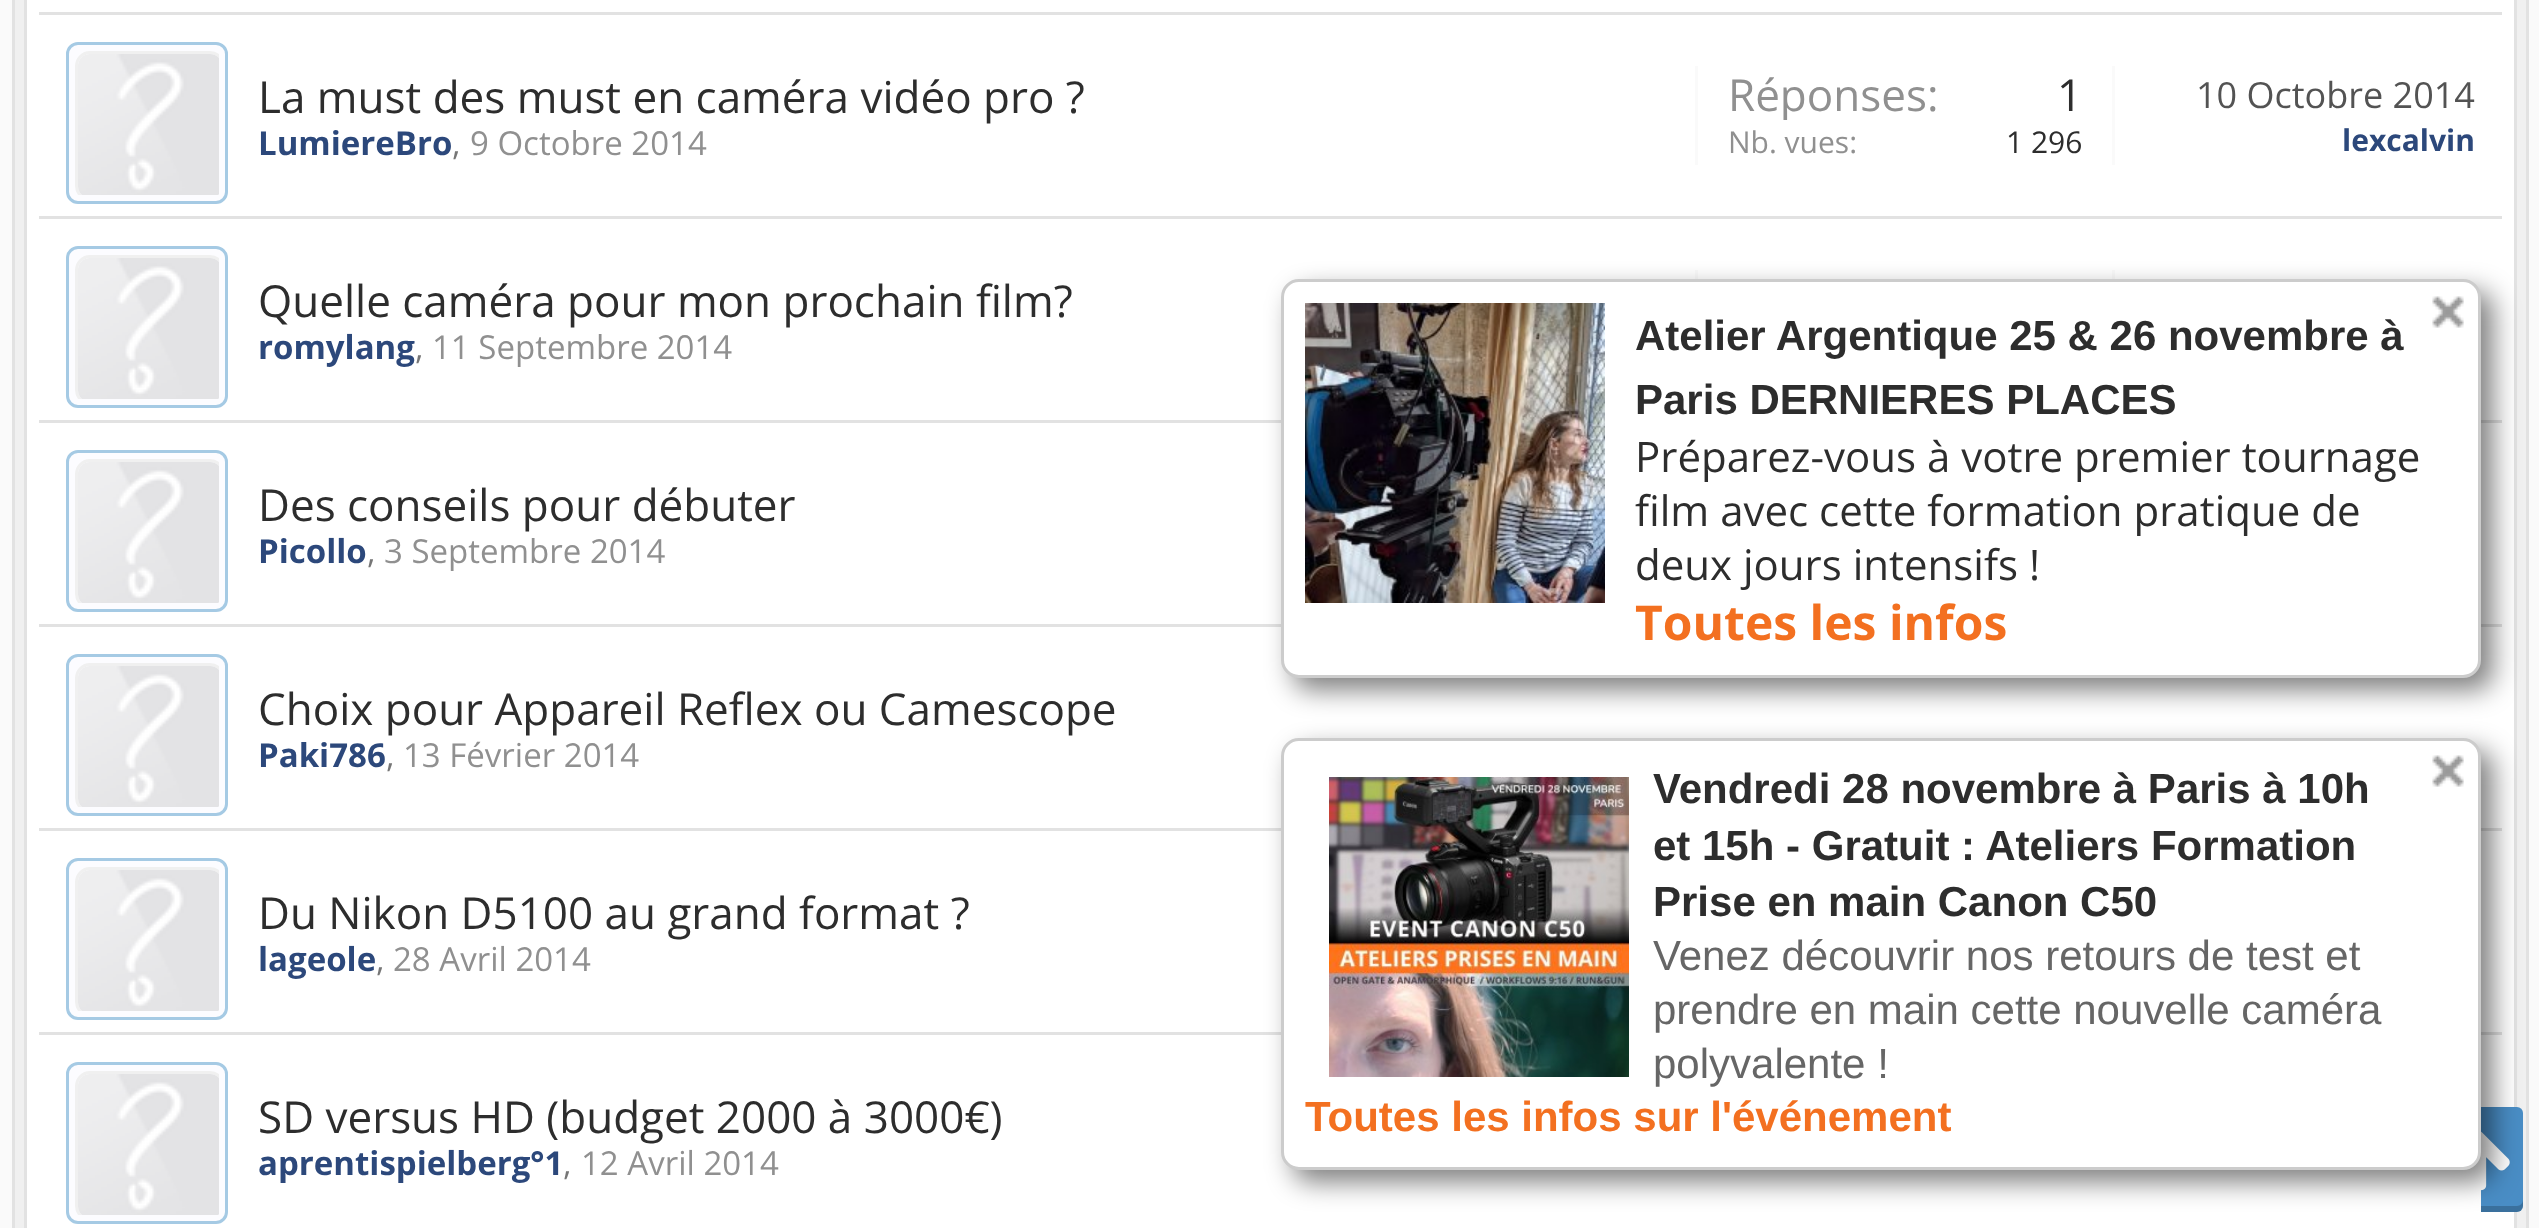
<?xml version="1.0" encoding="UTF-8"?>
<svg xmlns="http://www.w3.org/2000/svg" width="2539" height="1228">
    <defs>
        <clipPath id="clip1"><rect x="75" y="51" width="144" height="144"/></clipPath>
        <clipPath id="clip2"><rect x="1698" y="66" width="414" height="54"/></clipPath>
        <clipPath id="clip3"><rect x="75" y="255" width="144" height="144"/></clipPath>
        <clipPath id="clip4"><rect x="75" y="459" width="144" height="144"/></clipPath>
        <clipPath id="clip5"><rect x="75" y="663" width="144" height="144"/></clipPath>
        <clipPath id="clip6"><rect x="75" y="867" width="144" height="144"/></clipPath>
        <clipPath id="clip7"><rect x="75" y="1071" width="144" height="144"/></clipPath>
        <filter id="blur1" x="-50%" y="-200%" width="200%" height="500%"><feGaussianBlur stdDeviation="13.5"/></filter>
    </defs>
    <rect width="100%" height="100%" fill="#FAFAFA"/>
    <rect x="13.5" y="-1.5" width="2514" height="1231" fill="#F0F0F0" stroke="#E2E2E2" stroke-width="3"/>
    <rect x="25.5" y="-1.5" width="2490" height="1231" fill="#FFFFFF" stroke="#E2E2E2" stroke-width="3"/>
    <rect x="39" y="12" width="2463" height="3" fill="#E2E2E2"/>
    <rect x="39" y="216" width="2463" height="3" fill="#E2E2E2"/>
    <rect x="67.5" y="43.5" width="159" height="159" rx="10.5" fill="#FCFCFF" stroke="#A5CAE4" stroke-width="3"/>
    <g clip-path="url(#clip1)">
        <rect x="76.5" y="52.5" width="147" height="147" rx="13.5" fill="none" stroke="#F0F0F0" stroke-width="3"/>
    </g>
    <image x="78" y="54" width="141" height="141" href="img_01.png"/>
    <text x="258" y="113" font-family="Open Sans" font-size="44" fill="#2D2D2D">La must des must en caméra vidéo pro ?</text>
    <text x="258" y="155" font-family="Open Sans" font-size="33" font-weight="700" fill="#2C487B">LumiereBro</text>
    <text x="452" y="155" font-family="Open Sans" font-size="33" fill="#767676">,</text>
    <text x="470" y="155" font-family="Open Sans" font-size="33" fill="#909090">9 Octobre 2014</text>
    <rect x="2112" y="66" width="3" height="99" fill="#FAFAFA"/>
    <rect x="1695" y="66" width="3" height="99" fill="#FAFAFA"/>
    <g clip-path="url(#clip2)">
        <text x="1728" y="111" font-family="Open Sans" font-size="44" fill="#909090">Réponses:</text>
    </g>
    <text x="2057" y="111" font-family="Open Sans" font-size="44" fill="#2D2D2D">1</text>
    <text x="1728" y="153" font-family="Open Sans" font-size="30" fill="#909090">Nb. vues:</text>
    <text x="2006" y="153" font-family="Open Sans" font-size="30" fill="#2D2D2D">1 296</text>
    <text x="2196" y="108" font-family="Open Sans" font-size="36" fill="#535353">10 Octobre 2014</text>
    <text x="2342" y="151" font-family="Open Sans" font-size="30" font-weight="700" fill="#2C487B">lexcalvin</text>
    <rect x="39" y="420" width="2463" height="3" fill="#E2E2E2"/>
    <rect x="67.5" y="247.5" width="159" height="159" rx="10.5" fill="#FCFCFF" stroke="#A5CAE4" stroke-width="3"/>
    <g clip-path="url(#clip3)">
        <rect x="76.5" y="256.5" width="147" height="147" rx="13.5" fill="none" stroke="#F0F0F0" stroke-width="3"/>
    </g>
    <image x="78" y="258" width="141" height="141" href="img_01.png"/>
    <rect x="2112" y="270" width="3" height="9" fill="#FAFAFA"/>
    <rect x="1695" y="270" width="3" height="9" fill="#FAFAFA"/>
    <text x="258" y="317" font-family="Open Sans" font-size="44" fill="#2D2D2D">Quelle caméra pour mon prochain film?</text>
    <text x="258" y="359" font-family="Open Sans" font-size="33" font-weight="700" fill="#2C487B">romylang</text>
    <text x="415" y="359" font-family="Open Sans" font-size="33" fill="#767676">,</text>
    <text x="432" y="359" font-family="Open Sans" font-size="33" fill="#909090">11 Septembre 2014</text>
    <rect x="39" y="624" width="2463" height="3" fill="#E2E2E2"/>
    <rect x="67.5" y="451.5" width="159" height="159" rx="10.5" fill="#FCFCFF" stroke="#A5CAE4" stroke-width="3"/>
    <g clip-path="url(#clip4)">
        <rect x="76.5" y="460.5" width="147" height="147" rx="13.5" fill="none" stroke="#F0F0F0" stroke-width="3"/>
    </g>
    <image x="78" y="462" width="141" height="141" href="img_01.png"/>
    <text x="258" y="521" font-family="Open Sans" font-size="44" fill="#2D2D2D">Des conseils pour débuter</text>
    <text x="258" y="563" font-family="Open Sans" font-size="33" font-weight="700" fill="#2C487B">Picollo</text>
    <text x="367" y="563" font-family="Open Sans" font-size="33" fill="#767676">,</text>
    <text x="384" y="563" font-family="Open Sans" font-size="33" fill="#909090">3 Septembre 2014</text>
    <rect x="39" y="828" width="2463" height="3" fill="#E2E2E2"/>
    <rect x="67.5" y="655.5" width="159" height="159" rx="10.5" fill="#FCFCFF" stroke="#A5CAE4" stroke-width="3"/>
    <g clip-path="url(#clip5)">
        <rect x="76.5" y="664.5" width="147" height="147" rx="13.5" fill="none" stroke="#F0F0F0" stroke-width="3"/>
    </g>
    <image x="78" y="666" width="141" height="141" href="img_01.png"/>
    <text x="258" y="725" font-family="Open Sans" font-size="44" fill="#2D2D2D">Choix pour Appareil Reflex ou Camescope</text>
    <text x="258" y="767" font-family="Open Sans" font-size="33" font-weight="700" fill="#2C487B">Paki786</text>
    <text x="386" y="767" font-family="Open Sans" font-size="33" fill="#767676">,</text>
    <text x="403" y="767" font-family="Open Sans" font-size="33" fill="#909090">13 Février 2014</text>
    <rect x="39" y="1032" width="2463" height="3" fill="#E2E2E2"/>
    <rect x="67.5" y="859.5" width="159" height="159" rx="10.5" fill="#FCFCFF" stroke="#A5CAE4" stroke-width="3"/>
    <g clip-path="url(#clip6)">
        <rect x="76.5" y="868.5" width="147" height="147" rx="13.5" fill="none" stroke="#F0F0F0" stroke-width="3"/>
    </g>
    <image x="78" y="870" width="141" height="141" href="img_01.png"/>
    <text x="258" y="929" font-family="Open Sans" font-size="44" fill="#2D2D2D">Du Nikon D5100 au grand format ?</text>
    <text x="258" y="971" font-family="Open Sans" font-size="33" font-weight="700" fill="#2C487B">lageole</text>
    <text x="376" y="971" font-family="Open Sans" font-size="33" fill="#767676">,</text>
    <text x="393" y="971" font-family="Open Sans" font-size="33" fill="#909090">28 Avril 2014</text>
    <rect x="67.5" y="1063.5" width="159" height="159" rx="10.5" fill="#FCFCFF" stroke="#A5CAE4" stroke-width="3"/>
    <g clip-path="url(#clip7)">
        <rect x="76.5" y="1072.5" width="147" height="147" rx="13.5" fill="none" stroke="#F0F0F0" stroke-width="3"/>
    </g>
    <image x="78" y="1074" width="141" height="141" href="img_01.png"/>
    <text x="258" y="1133" font-family="Open Sans" font-size="44" fill="#2D2D2D">SD versus HD (budget 2000 à 3000€)</text>
    <text x="258" y="1175" font-family="Open Sans" font-size="33" font-weight="700" fill="#2C487B">aprentispielberg°1</text>
    <text x="563" y="1175" font-family="Open Sans" font-size="33" fill="#767676">,</text>
    <text x="581" y="1175" font-family="Open Sans" font-size="33" fill="#909090">12 Avril 2014</text>
    <rect x="2433" y="1107" width="90" height="105" rx="6" fill="#498DC5"/>
    <path d="M 2433 1200 V 1206 C 2433 1209 2436 1212 2439 1212 H 2517 C 2520 1212 2523 1209 2523 1206 V 1200 C 2523 1203 2520 1206 2517 1206 H 2439 C 2436 1206 2433 1203 2433 1200 Z" fill="#000000" fill-opacity="0.2"/>
    <rect x="1281" y="420" width="1200" height="792" fill="#FFFFFF"/>
    <rect x="1293" y="291" width="1200" height="399" rx="18" fill="#000000" fill-opacity="0.5" filter="url(#blur1)"/>
    <rect x="1282.5" y="280.5" width="1197" height="396" rx="16.5" fill="#FFFFFF" stroke="#CCCCCC" stroke-width="3"/>
    <image x="2432" y="296" width="32" height="32" href="img_02.png"/>
    <image x="1305" y="303" width="300" height="300" href="img_03.png"/>
    <text font-family="Liberation Sans" font-size="42" font-weight="700" fill="#2D2D2D">
        <tspan x="1635" y="350">Atelier Argentique 25 &amp; 26 novembre à</tspan>
        <tspan x="1635" y="414">Paris DERNIERES PLACES</tspan>
    </text>
    <text font-family="Open Sans" font-size="42" fill="#2D2D2D">
        <tspan x="1635" y="472">Préparez-vous à votre premier tournage</tspan>
        <tspan x="1635" y="526">film avec cette formation pratique de</tspan>
        <tspan x="1635" y="580">deux jours intensifs !</tspan>
    </text>
    <text x="1635" y="640" font-family="Open Sans" font-size="48" font-weight="700" fill="#F37020">Toutes les infos</text>
    <image x="2481" y="1131" width="29" height="60" href="img_05.png"/>
    <rect x="1293" y="750" width="1200" height="432" rx="18" fill="#000000" fill-opacity="0.5" filter="url(#blur1)"/>
    <rect x="1282.5" y="739.5" width="1197" height="429" rx="16.5" fill="#FFFFFF" stroke="#CCCCCC" stroke-width="3"/>
    <image x="1329" y="777" width="300" height="300" href="img_04.png"/>
    <text font-family="Liberation Sans" font-size="42" font-weight="700" fill="#2D2D2D">
        <tspan x="1653" y="803">Vendredi 28 novembre à Paris à 10h</tspan>
        <tspan x="1653" y="860">et 15h - Gratuit : Ateliers Formation</tspan>
        <tspan x="1653" y="916">Prise en main Canon C50</tspan>
    </text>
    <text font-family="Liberation Sans" font-size="42" fill="#666666">
        <tspan x="1653" y="970">Venez découvrir nos retours de test et</tspan>
        <tspan x="1653" y="1024">prendre en main cette nouvelle caméra</tspan>
        <tspan x="1653" y="1078">polyvalente !</tspan>
    </text>
    <text x="1305" y="1131" font-family="Liberation Sans" font-size="42" font-weight="700" fill="#F37020">Toutes les infos sur l'événement</text>
    <image x="2432" y="755" width="32" height="32" href="img_02.png"/>
</svg>
